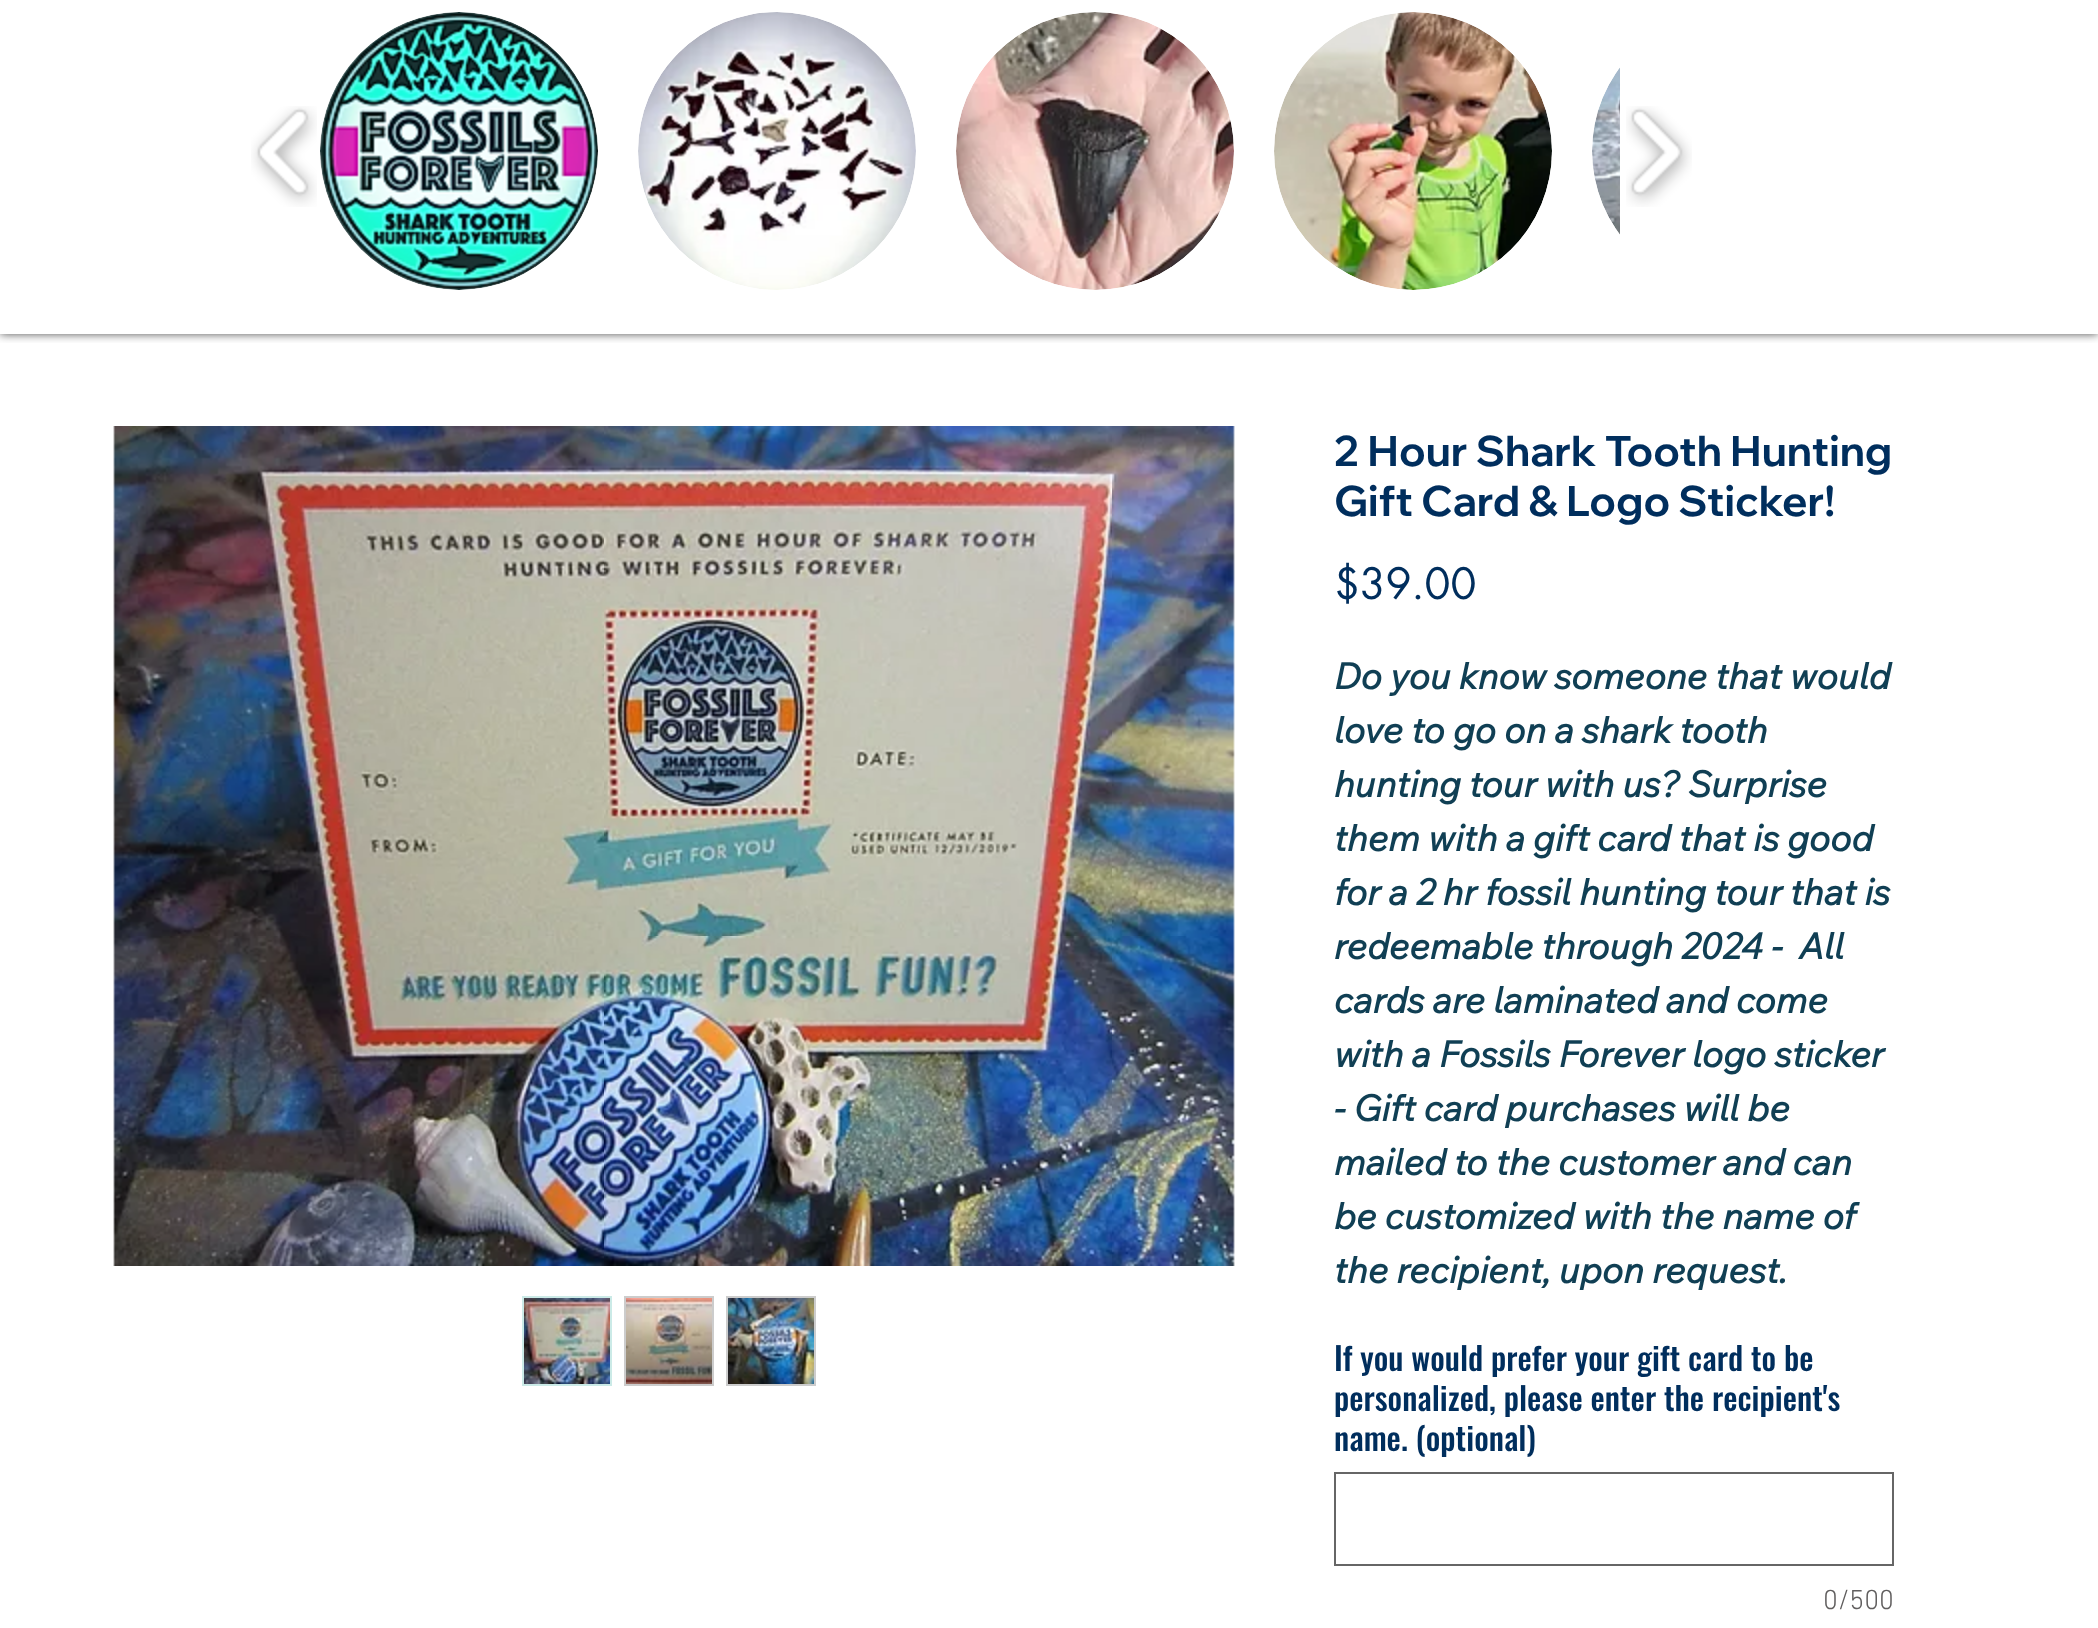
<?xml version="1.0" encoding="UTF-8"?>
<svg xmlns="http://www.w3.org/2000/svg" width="2098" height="1628">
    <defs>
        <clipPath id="clip1"><rect x="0" y="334" width="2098" height="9"/></clipPath>
        <filter id="blur1" x="-50%" y="-200%" width="200%" height="500%"><feGaussianBlur stdDeviation="5"/></filter>
    </defs>
    <rect width="100%" height="100%" fill="#FFFFFF"/>
    <g clip-path="url(#clip1)">
        <rect x="0" y="-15" width="2098" height="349" fill="#000000" fill-opacity="0.7" filter="url(#blur1)"/>
    </g>
    <image x="251" y="106" width="66" height="101" href="img_01.png"/>
    <image x="320" y="12" width="278" height="278" href="img_02.png"/>
    <image x="638" y="12" width="278" height="278" href="img_03.png"/>
    <image x="956" y="12" width="278" height="278" href="img_04.png"/>
    <image x="1274" y="12" width="278" height="278" href="img_05.png"/>
    <image x="1592" y="67" width="28" height="168" href="img_06.png"/>
    <image x="1626" y="106" width="66" height="101" href="img_07.png"/>
    <image x="113" y="426" width="1122" height="840" href="img_08.png"/>
    <rect x="523" y="1297" width="88" height="88" fill="none" stroke="#CBEAE7" stroke-width="2"/>
    <image x="524" y="1298" width="86" height="86" href="img_09.png"/>
    <rect x="625" y="1297" width="88" height="88" fill="none" stroke="#CCCCCC" stroke-width="2"/>
    <image x="626" y="1298" width="86" height="86" href="img_10.png"/>
    <rect x="727" y="1297" width="88" height="88" fill="none" stroke="#CCCCCC" stroke-width="2"/>
    <image x="728" y="1298" width="86" height="86" href="img_11.png"/>
    <text font-family="Wix Madefor Display" font-size="42" font-weight="700" fill="#002E5D">
        <tspan x="1334" y="466">2 Hour Shark Tooth Hunting</tspan>
        <tspan x="1334" y="516">Gift Card &amp; Logo Sticker!</tspan>
    </text>
    <text x="1334" y="599" font-family="futura" font-size="42" fill="#002E5D">$39.00</text>
    <text font-family="Wix Madefor Text" font-size="36" font-weight="700" font-style="italic" fill="#103F54" xml:space="preserve"><tspan x="1334" y="689">Do you know someone that would</tspan><tspan x="1334" y="743">love to go on a shark tooth</tspan><tspan x="1334" y="797">hunting tour with us? Surprise</tspan><tspan x="1334" y="851">them with a gift card that is good</tspan><tspan x="1334" y="905">for a 2 hr fossil hunting tour that is</tspan><tspan x="1334" y="959">redeemable through 2024 -  All</tspan><tspan x="1334" y="1013">cards are laminated and come</tspan><tspan x="1334" y="1067">with a Fossils Forever logo sticker</tspan><tspan x="1334" y="1121">- Gift card purchases will be</tspan><tspan x="1334" y="1175">mailed to the customer and can</tspan><tspan x="1334" y="1229">be customized with the name of</tspan><tspan x="1334" y="1283">the recipient, upon request.</tspan></text>
    <text font-family="Oswald" font-size="32" font-weight="500" fill="#002E5D">
        <tspan x="1334" y="1371">If you would prefer your gift card to be</tspan>
        <tspan x="1334" y="1411">personalized, please enter the recipient's</tspan>
        <tspan x="1334" y="1451">name. (optional)</tspan>
    </text>
    <rect x="1335" y="1473" width="558" height="92" fill="none" stroke="#666666" stroke-width="2"/>
    <text x="1823" y="1609" font-family="'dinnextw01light'" font-size="28" font-weight="300" fill="#605E5E">0/500</text>
</svg>
